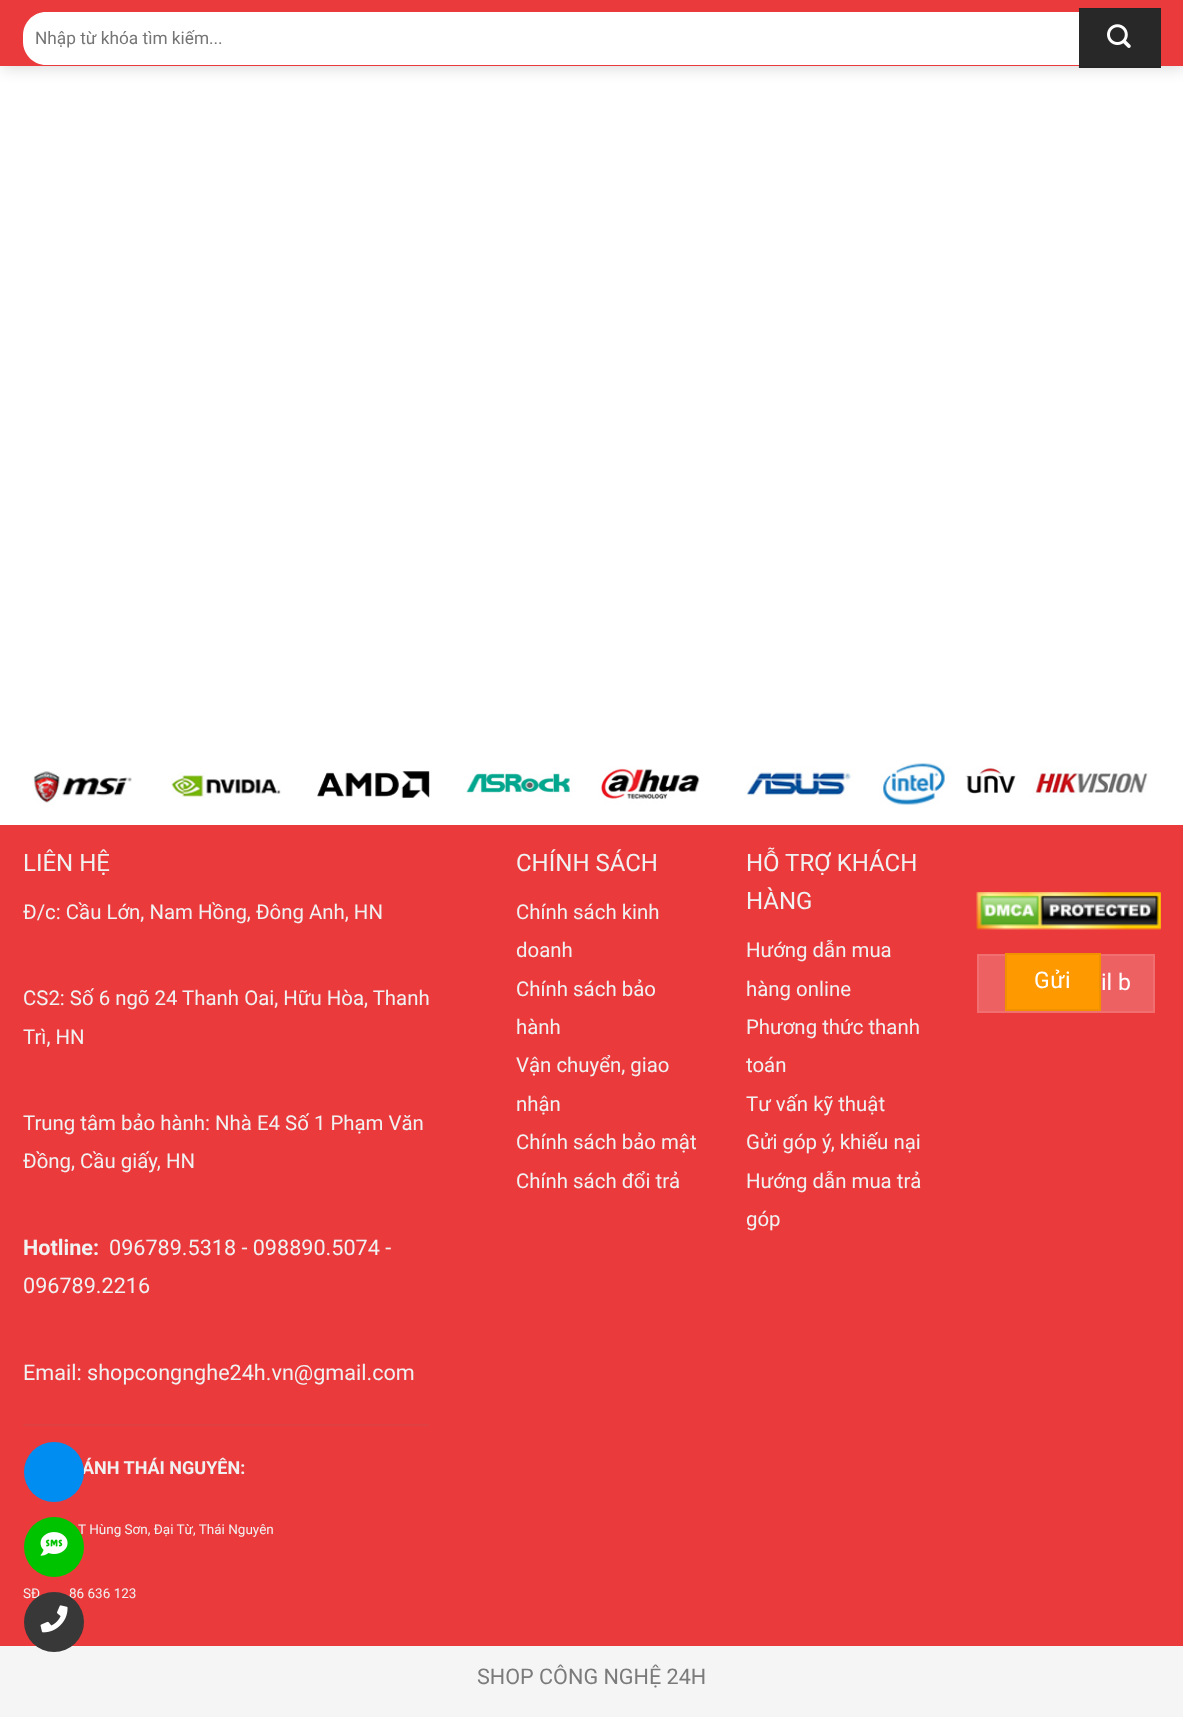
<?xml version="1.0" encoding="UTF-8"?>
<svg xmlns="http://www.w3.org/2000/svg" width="1183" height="1717">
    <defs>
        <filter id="blur1" x="-50%" y="-200%" width="200%" height="500%"><feGaussianBlur stdDeviation="7.5"/></filter>
    </defs>
    <rect width="100%" height="100%" fill="#FFFFFF"/>
    <rect x="2" y="2" width="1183" height="66" fill="#000000" fill-opacity="0.15" filter="url(#blur1)"/>
    <rect x="0" y="0" width="1183" height="66" fill="#EA3A3C"/>
    <path d="M 46 12 H 1079 V 65 H 46 C 33.5 65 23 54.5 23 42 V 35 C 23 22.5 33.5 12 46 12 Z" fill="#FFFFFF"/>
    <text x="35" y="44" font-family="Roboto" font-size="17.25" fill="#757575">Nhập từ khóa tìm kiếm...</text>
    <rect x="1079" y="8" width="82" height="60" fill="#282828"/>
    <path d="M 1078 8 H 1161 L 1160 9 H 1078 Z" fill="#000000" fill-opacity="0.05"/>
    <path d="M 1161 68 H 1078 V 66 H 1160 Z" fill="#000000" fill-opacity="0.05"/>
    <image x="1107" y="24" width="24" height="24" href="img_01.png"/>
    <image x="33" y="763" width="1115" height="42" href="img_02.png"/>
    <rect x="0" y="825" width="1183" height="821" fill="#EA3A3C"/>
    <text x="23" y="871" font-family="Roboto" font-size="24" fill="#F1F1F1">LIÊN HỆ</text>
    <text x="23" y="919" font-family="Roboto" font-size="20.4" fill="#F1F1F1">Đ/c: Cầu Lớn, Nam Hồng, Đông Anh, HN</text>
    <text font-family="Roboto" font-size="20.4" fill="#F1F1F1">
        <tspan x="23" y="1005">CS2: Số 6 ngõ 24 Thanh Oai, Hữu Hòa, Thanh</tspan>
        <tspan x="23" y="1044">Trì, HN</tspan>
    </text>
    <text font-family="Roboto" font-size="20.4" fill="#F1F1F1">
        <tspan x="23" y="1130">Trung tâm bảo hành: Nhà E4 Số 1 Phạm Văn</tspan>
        <tspan x="23" y="1168">Đồng, Cầu giấy, HN</tspan>
    </text>
    <text x="23" y="1255" font-family="Roboto" font-size="21.6" font-weight="700" fill="#F1F1F1">Hotline:</text>
    <text x="109" y="1255" font-family="Roboto" font-size="21.6" fill="#F1F1F1">096789.5318 - 098890.5074 -</text>
    <text x="23" y="1293" font-family="Roboto" font-size="21.6" fill="#F1F1F1">096789.2216</text>
    <text x="23" y="1380" font-family="Roboto" font-size="21.6" fill="#F1F1F1">Email: shopcongnghe24h.vn@gmail.com</text>
    <rect x="23" y="1424" width="406" height="2" fill="#DF4143"/>
    <text x="82" y="1474" font-family="Roboto" font-size="18" font-weight="700" fill="#F1F1F1">ÁNH THÁI NGUYÊN:</text>
    <text x="78" y="1534" font-family="Roboto" font-size="13.5" fill="#F1F1F1">T Hùng Sơn, Đại Từ, Thái Nguyên</text>
    <text x="23" y="1598" font-family="Roboto" font-size="13.5" fill="#F1F1F1">SĐ</text>
    <text x="69" y="1598" font-family="Roboto" font-size="13.5" fill="#F1F1F1">86 636 123</text>
    <text x="516" y="871" font-family="Roboto" font-size="24" fill="#F1F1F1">CHÍNH SÁCH</text>
    <text font-family="Roboto" font-size="20.4" fill="#F1F1F1">
        <tspan x="516" y="919">Chính sách kinh</tspan>
        <tspan x="516" y="957">doanh</tspan>
        <tspan x="516" y="996">Chính sách bảo</tspan>
        <tspan x="516" y="1034">hành</tspan>
        <tspan x="516" y="1072">Vận chuyển, giao</tspan>
        <tspan x="516" y="1111">nhận</tspan>
        <tspan x="516" y="1149">Chính sách bảo mật</tspan>
        <tspan x="516" y="1188">Chính sách đổi trả</tspan>
    </text>
    <text font-family="Roboto" font-size="24" fill="#F1F1F1">
        <tspan x="746" y="871">HỖ TRỢ KHÁCH</tspan>
        <tspan x="746" y="909">HÀNG</tspan>
    </text>
    <text font-family="Roboto" font-size="20.4" fill="#F1F1F1">
        <tspan x="746" y="957">Hướng dẫn mua</tspan>
        <tspan x="746" y="996">hàng online</tspan>
        <tspan x="746" y="1034">Phương thức thanh</tspan>
        <tspan x="746" y="1072">toán</tspan>
        <tspan x="746" y="1111">Tư vấn kỹ thuật</tspan>
        <tspan x="746" y="1149">Gửi góp ý, khiếu nại</tspan>
        <tspan x="746" y="1188">Hướng dẫn mua trả</tspan>
        <tspan x="746" y="1226">góp</tspan>
    </text>
    <image x="976" y="892" width="185" height="38" href="img_03.png"/>
    <rect x="978" y="955" width="176" height="57" fill="#EE6163" stroke="#F06F71" stroke-width="2"/>
    <rect x="1006" y="954" width="94" height="56" fill="#FF9900" stroke="#F29100" stroke-width="2"/>
    <text x="1034" y="988" font-family="Roboto" font-size="23" letter-spacing="0.5" fill="#FFFFFF">Gửi</text>
    <text x="1101" y="990" font-family="Roboto" font-size="23" fill="#FFFFFF">il b</text>
    <rect x="0" y="1646" width="1183" height="71" fill="#F5F5F5"/>
    <text x="477" y="1684" font-family="Roboto" font-size="21.6" fill="#7B7B7B">SHOP CÔNG NGHỆ 24H</text>
    <circle cx="54" cy="1472" r="30" fill="#008DF2"/>
    <circle cx="54" cy="1547" r="30" fill="#00C300"/>
    <image x="40" y="1532" width="28" height="24" href="img_04.png"/>
    <circle cx="54" cy="1622" r="30" fill="#383838"/>
    <image x="40" y="1605" width="28" height="28" href="img_05.png"/>
</svg>
